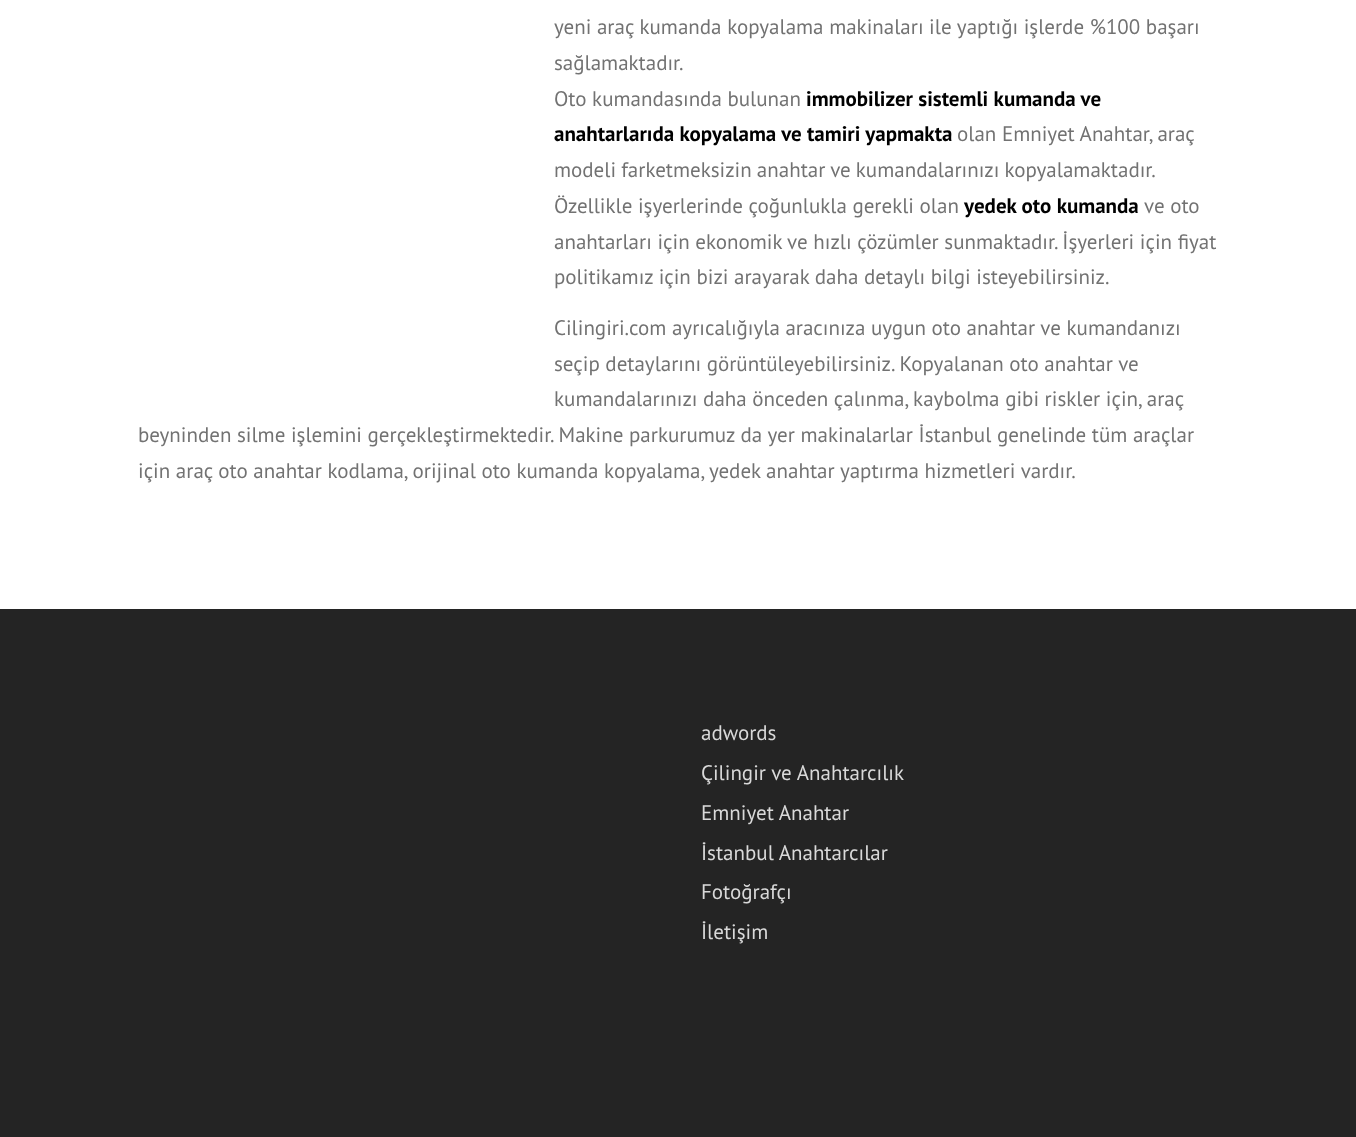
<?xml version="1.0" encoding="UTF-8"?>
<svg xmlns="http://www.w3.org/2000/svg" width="1356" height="1137">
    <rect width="100%" height="100%" fill="#FFFFFF"/>
    <text font-family="PT Sans" font-size="21" fill="#727272">
        <tspan x="554" y="34">yeni araç kumanda kopyalama makinaları ile yaptığı işlerde %100 başarı</tspan>
        <tspan x="554" y="70">sağlamaktadır.</tspan>
        <tspan x="554" y="106">Oto kumandasında bulunan</tspan>
    </text>
    <text x="806" y="106" font-family="PT Sans" font-size="21" font-weight="700" fill="#000000">immobilizer sistemli kumanda ve</text>
    <text x="554" y="141" font-family="PT Sans" font-size="21" font-weight="700" fill="#000000">anahtarlarıda kopyalama ve tamiri yapmakta</text>
    <text x="957" y="141" font-family="PT Sans" font-size="21" fill="#727272">olan Emniyet Anahtar, araç</text>
    <text font-family="PT Sans" font-size="21" fill="#727272">
        <tspan x="554" y="177" word-spacing="-0.5">modeli farketmeksizin anahtar ve kumandalarınızı kopyalamaktadır.</tspan>
        <tspan x="554" y="213">Özellikle işyerlerinde çoğunlukla gerekli olan</tspan>
    </text>
    <text x="964" y="213" font-family="PT Sans" font-size="21" font-weight="700" fill="#000000">yedek oto kumanda</text>
    <text x="1144" y="213" font-family="PT Sans" font-size="21" fill="#727272">ve oto</text>
    <text font-family="PT Sans" font-size="21" fill="#727272">
        <tspan x="554" y="249">anahtarları için ekonomik ve hızlı çözümler sunmaktadır. İşyerleri için fiyat</tspan>
        <tspan x="554" y="284">politikamız için bizi arayarak daha detaylı bilgi isteyebilirsiniz.</tspan>
    </text>
    <text font-family="PT Sans" font-size="21" fill="#727272">
        <tspan x="554" y="335">Cilingiri.com ayrıcalığıyla aracınıza uygun oto anahtar ve kumandanızı</tspan>
        <tspan x="554" y="371">seçip detaylarını görüntüleyebilirsiniz. Kopyalanan oto anahtar ve</tspan>
        <tspan x="554" y="406">kumandalarınızı daha önceden çalınma, kaybolma gibi riskler için, araç</tspan>
    </text>
    <text font-family="PT Sans" font-size="21" fill="#727272">
        <tspan x="138" y="442">beyninden silme işlemini gerçekleştirmektedir. Makine parkurumuz da yer makinalarlar İstanbul genelinde tüm araçlar</tspan>
        <tspan x="138" y="478">için araç oto anahtar kodlama, orijinal oto kumanda kopyalama, yedek anahtar yaptırma hizmetleri vardır.</tspan>
    </text>
    <rect x="0" y="609" width="1356" height="528" fill="#242424"/>
    <text font-family="PT Sans" font-size="21" fill="#D9D9D9">
        <tspan x="701" y="740">adwords</tspan>
        <tspan x="701" y="780">Çilingir ve Anahtarcılık</tspan>
        <tspan x="701" y="820">Emniyet Anahtar</tspan>
        <tspan x="701" y="860">İstanbul Anahtarcılar</tspan>
        <tspan x="701" y="899">Fotoğrafçı</tspan>
        <tspan x="701" y="939">İletişim</tspan>
    </text>
</svg>
